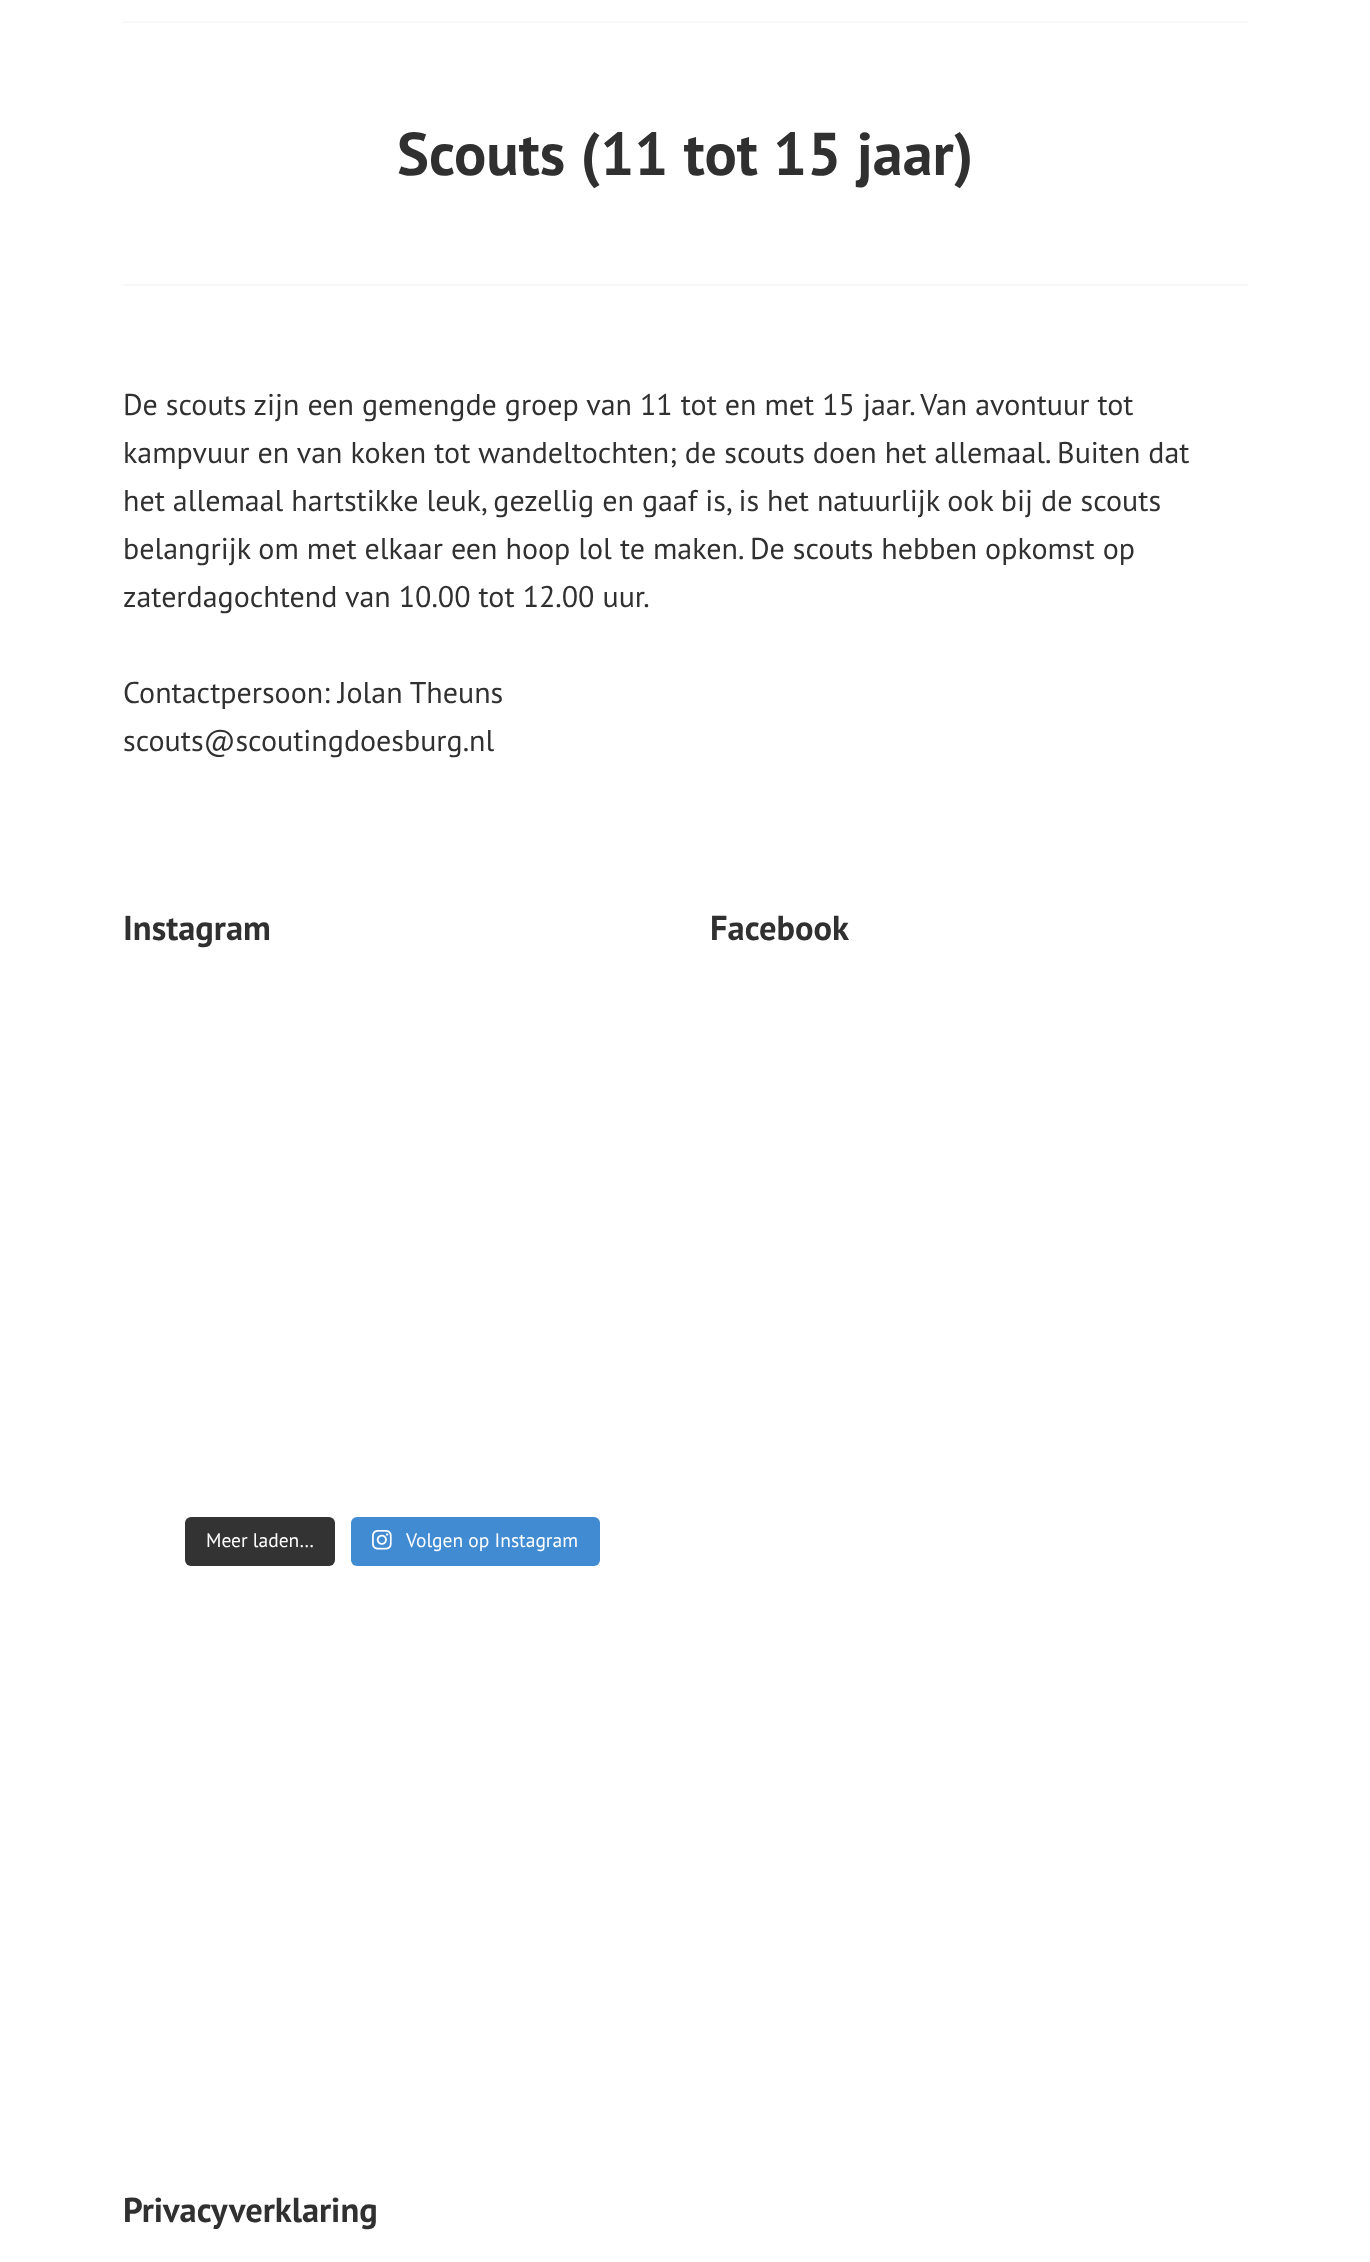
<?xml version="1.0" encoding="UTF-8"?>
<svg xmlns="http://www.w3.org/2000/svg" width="1370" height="2262">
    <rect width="100%" height="100%" fill="#FFFFFF"/>
    <rect x="123" y="21" width="1125" height="2" fill="#F8F8F8"/>
    <text x="397" y="175" font-family="PT Sans" font-size="60.25" font-weight="700" fill="#303030">Scouts (11 tot 15 jaar)</text>
    <rect x="123" y="284" width="1125" height="2" fill="#F8F8F8"/>
    <text font-family="PT Sans" font-size="30" fill="#303030">
        <tspan x="123" y="415">De scouts zijn een gemengde groep van 11 tot en met 15 jaar. Van avontuur tot</tspan>
        <tspan x="123" y="463">kampvuur en van koken tot wandeltochten; de scouts doen het allemaal. Buiten dat</tspan>
        <tspan x="123" y="511">het allemaal hartstikke leuk, gezellig en gaaf is, is het natuurlijk ook bij de scouts</tspan>
        <tspan x="123" y="559">belangrijk om met elkaar een hoop lol te maken. De scouts hebben opkomst op</tspan>
        <tspan x="123" y="607">zaterdagochtend van 10.00 tot 12.00 uur.</tspan>
    </text>
    <text font-family="PT Sans" font-size="30" fill="#303030">
        <tspan x="123" y="703">Contactpersoon: Jolan Theuns</tspan>
        <tspan x="123" y="751">scouts@scoutingdoesburg.nl</tspan>
    </text>
    <text x="123" y="940" font-family="PT Sans" font-size="34.5" font-weight="700" fill="#303030">Instagram</text>
    <rect x="185" y="1517" width="150" height="49" rx="6" fill="#333333"/>
    <text x="206" y="1547" font-family="PT Sans" font-size="19.5" fill="#FFFFFF">Meer laden…</text>
    <rect x="351" y="1517" width="249" height="49" rx="6" fill="#408BD1"/>
    <image x="372" y="1530" width="20" height="20" href="img_01.png"/>
    <text x="406" y="1547" font-family="PT Sans" font-size="19.5" fill="#FFFFFF">Volgen op Instagram</text>
    <text x="710" y="940" font-family="PT Sans" font-size="34.5" font-weight="700" fill="#303030">Facebook</text>
    <text x="123" y="2222" font-family="PT Sans" font-size="34.5" font-weight="700" fill="#303030">Privacyverklaring</text>
</svg>
